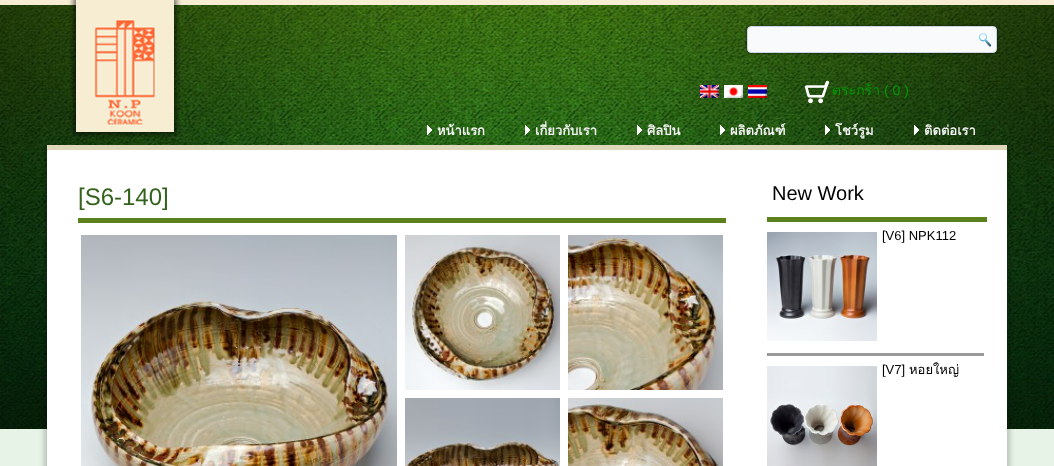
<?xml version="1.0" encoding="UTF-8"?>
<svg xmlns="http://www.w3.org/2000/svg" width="1054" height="466">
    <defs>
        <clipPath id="clip1"><path d="M 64 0 H 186 V 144 H 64 Z M 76 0 H 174 V 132 H 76 Z" clip-rule="evenodd"/></clipPath>
        <filter id="blur1" x="-50%" y="-200%" width="200%" height="500%"><feGaussianBlur stdDeviation="2.5"/></filter>
        <filter id="blur2" x="-50%" y="-200%" width="200%" height="500%"><feGaussianBlur stdDeviation="1"/></filter>
    </defs>
    <rect width="100%" height="100%" fill="#E7F3E7"/>
    <image x="0" y="5" width="1054" height="424" href="img_01.png"/>
    <rect x="0" y="0" width="1054" height="5" fill="#F6EDD3"/>
    <g clip-path="url(#clip1)">
        <rect x="73" y="-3" width="104" height="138" fill="#000000" fill-opacity="0.5" filter="url(#blur1)"/>
    </g>
    <image x="76" y="5" width="98" height="127" href="img_02.png"/>
    <rect x="746" y="25" width="252" height="29" rx="5" fill="#000000" fill-opacity="0.35" filter="url(#blur2)"/>
    <rect x="747.5" y="26.5" width="249" height="26" rx="3.5" fill="#F9FAFB" stroke="#CCD6E0"/>
    <image x="978" y="33" width="14" height="14" href="img_03.png"/>
    <image x="700" y="85" width="19" height="13" href="img_04.png"/>
    <image x="724" y="85" width="19" height="13" href="img_05.png"/>
    <image x="748" y="85" width="19" height="13" href="img_06.png"/>
    <image x="804" y="80" width="26" height="24" href="img_07.png"/>
    <text x="832" y="95" font-family="Loma" font-size="14" fill="#009900">ตระกร้า</text>
    <text x="884" y="95" font-family="Liberation Sans" font-size="14" fill="#009900">( 0 )</text>
    <rect x="44" y="147" width="966" height="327" fill="#000000" fill-opacity="0.2" filter="url(#blur1)"/>
    <rect x="47" y="145" width="960" height="5" fill="#DFD7B9"/>
    <image x="427" y="125" width="5" height="10" href="img_08.png"/>
    <text x="437" y="135" font-family="Loma" font-size="13" font-weight="700" fill="#F5F5F5">หน้าแรก</text>
    <image x="525" y="125" width="5" height="10" href="img_09.png"/>
    <text x="535" y="135" font-family="Loma" font-size="13" font-weight="700" fill="#F5F5F5">เกี่ยวกับเรา</text>
    <text x="647" y="135" font-family="Loma" font-size="13" font-weight="700" fill="#F5F5F5">ศิลปิน</text>
    <image x="637" y="125" width="5" height="10" href="img_10.png"/>
    <image x="720" y="125" width="5" height="10" href="img_11.png"/>
    <text x="730" y="135" font-family="Loma" font-size="13" font-weight="700" fill="#F5F5F5">ผลิตภัณฑ์</text>
    <image x="825" y="125" width="5" height="10" href="img_12.png"/>
    <text x="835" y="135" font-family="Loma" font-size="13" font-weight="700" fill="#F5F5F5">โชว์รูม</text>
    <text x="924" y="135" font-family="Loma" font-size="13" font-weight="700" fill="#F5F5F5">ติดต่อเรา</text>
    <image x="914" y="125" width="5" height="10" href="img_13.png"/>
    <rect x="47" y="150" width="960" height="316" fill="#FFFFFF"/>
    <rect x="78" y="218" width="648" height="5" fill="#5C801C"/>
    <text x="78" y="205" font-family="Liberation Sans" font-size="24" fill="#33631C">[S6-140]</text>
    <image x="81" y="235" width="316" height="231" href="img_14.png"/>
    <image x="405" y="235" width="155" height="155" href="img_15.png"/>
    <image x="568" y="235" width="155" height="155" href="img_16.png"/>
    <image x="405" y="398" width="155" height="68" href="img_17.png"/>
    <image x="568" y="398" width="155" height="68" href="img_18.png"/>
    <rect x="767" y="217" width="220" height="5" fill="#5C801C"/>
    <text x="772" y="200" font-family="Liberation Sans" font-size="20" fill="#000000">New Work</text>
    <image x="767" y="232" width="110" height="109" href="img_19.png"/>
    <text x="882" y="240" font-family="Liberation Sans" font-size="13" fill="#000000">[V6] NPK112</text>
    <rect x="767" y="353" width="217" height="3" fill="#999999"/>
    <image x="767" y="366" width="110" height="100" href="img_20.png"/>
    <text x="882" y="374" font-family="Liberation Sans" font-size="13" fill="#000000">[V7]</text>
    <text x="909" y="374" font-family="Loma" font-size="13" fill="#000000">หอยใหญ่</text>
</svg>
